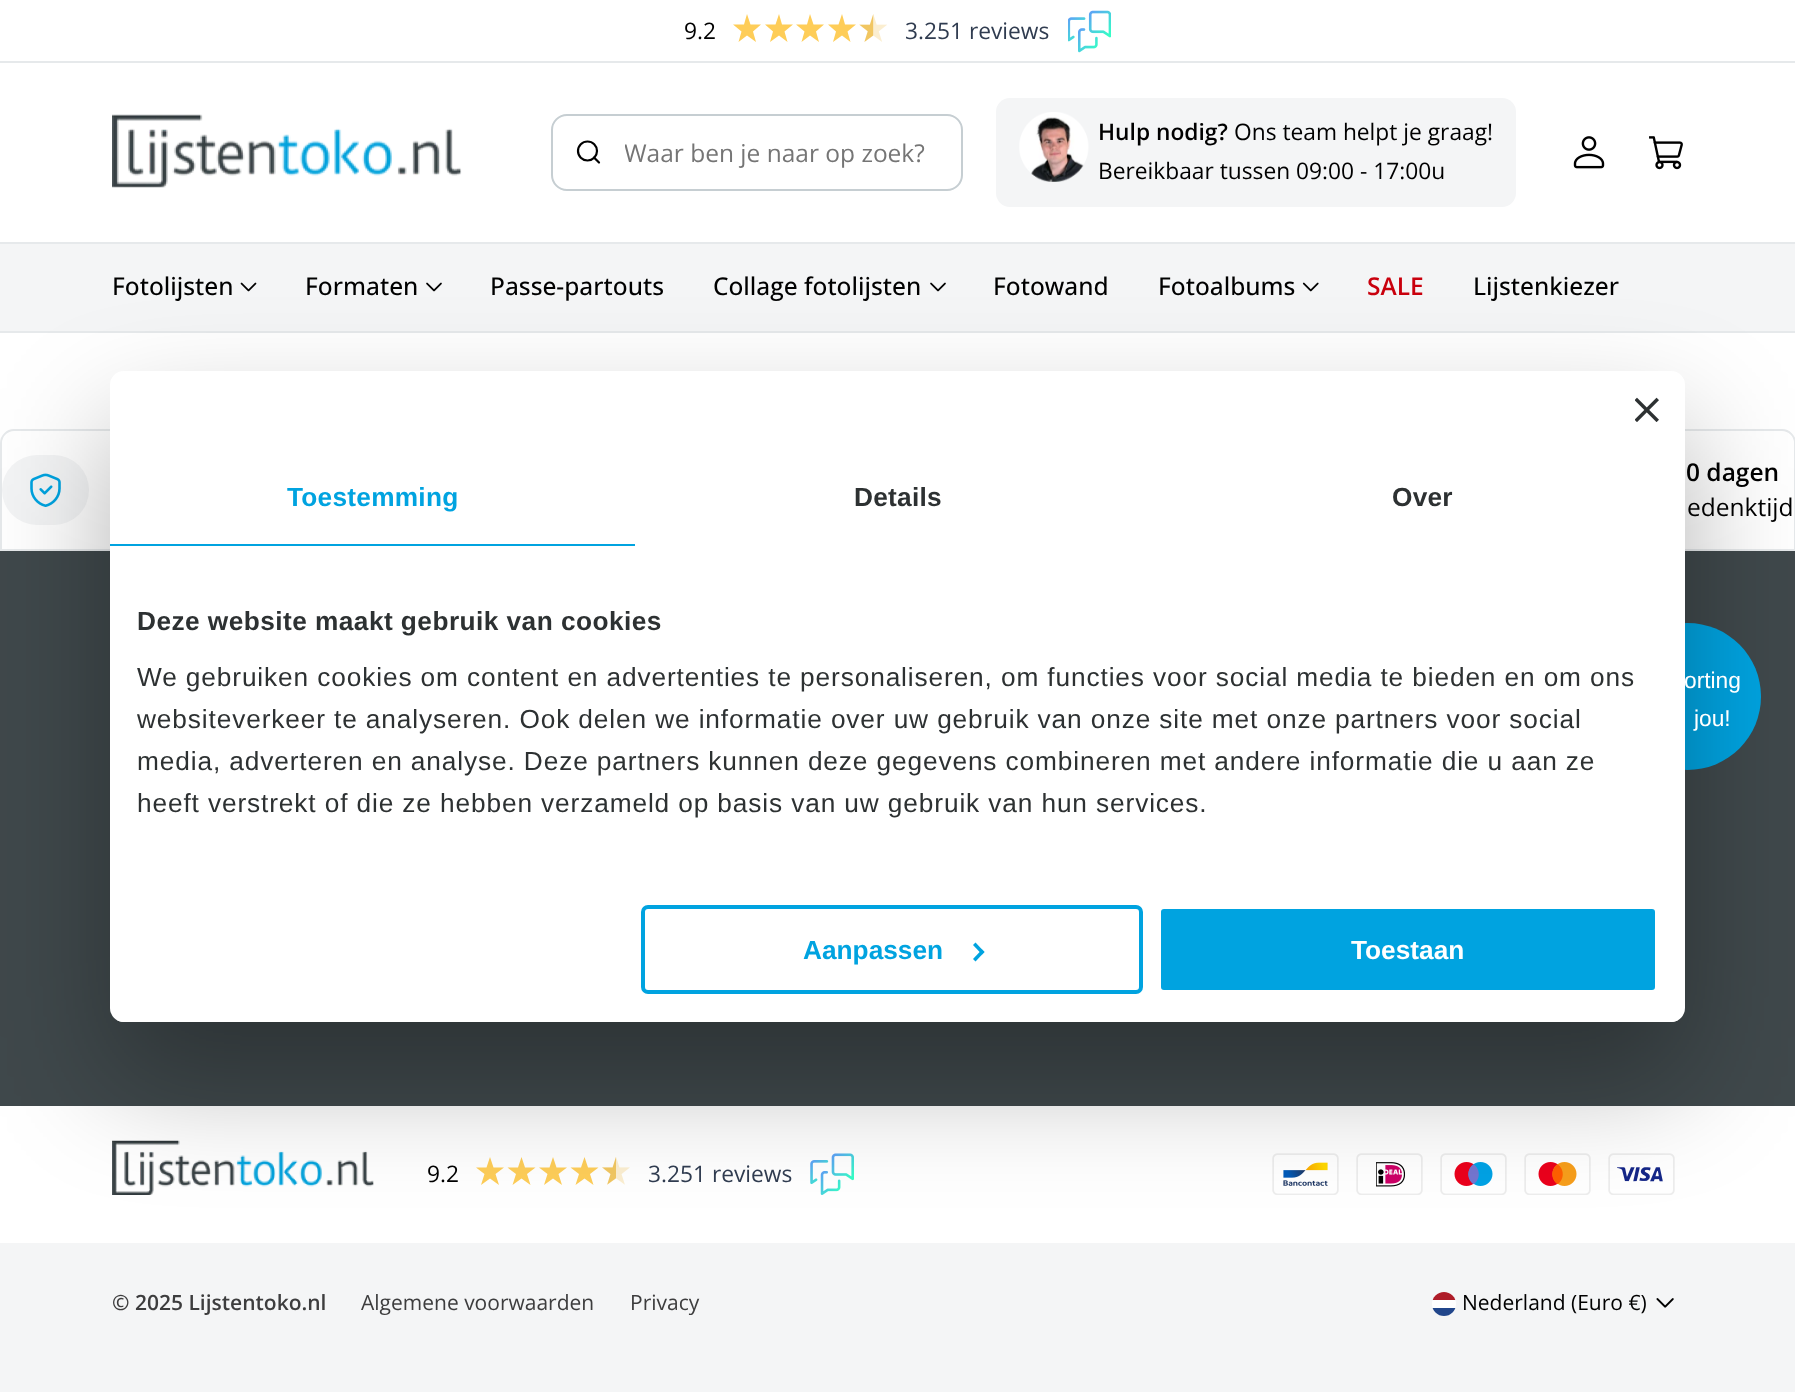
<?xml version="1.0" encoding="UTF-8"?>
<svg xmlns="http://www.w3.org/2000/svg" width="1795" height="1392">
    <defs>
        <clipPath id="clip1"><rect x="625" y="135" width="308" height="33"/></clipPath>
        <filter id="blur1" x="-50%" y="-200%" width="200%" height="500%"><feGaussianBlur stdDeviation="59.5"/></filter>
        <clipPath id="clip2"><rect x="110" y="371" width="1575" height="651" rx="14"/></clipPath>
        <clipPath id="clip3"><rect x="1432" y="1292" width="24" height="24" rx="12"/></clipPath>
    </defs>
    <rect width="100%" height="100%" fill="#FFFFFF"/>
    <text x="684" y="39" font-family="Open Sans" font-size="22.75" fill="#000000">9.2</text>
    <path d="M 756 42 L 753 31.5 L 761 24.5 H 750.5 L 747 14 L 744 24.5 H 733 L 741.5 31.5 L 738.5 42 L 747 35.5 Z M 787.5 42 L 784.5 31.5 L 793 24.5 H 782 L 779 14 L 775.5 24.5 H 765 L 773 31.5 L 770 42 L 779 35.5 Z" fill="#FECD58"/>
    <path d="M 819 42 L 816 31.5 L 824 24.5 H 813.5 L 810 14 L 807 24.5 H 796 L 804.5 31.5 L 801.5 42 L 810 35.5 Z M 850.5 42 L 847.5 31.5 L 856 24.5 H 845 L 842 14 L 838.5 24.5 H 828 L 836 31.5 L 833 42 L 842 35.5 Z" fill="#FECD58"/>
    <image x="859" y="14" width="28" height="28" href="img_01.png"/>
    <text x="905" y="39" font-family="Open Sans" font-size="22.75" fill="#303C50">3.251 reviews</text>
    <image x="1068" y="10" width="43" height="43" href="img_02.png"/>
    <rect x="0" y="61" width="1795" height="2" fill="#E6E9EB"/>
    <image x="112" y="114" width="350" height="74" href="img_03.png"/>
    <rect x="552" y="115" width="410" height="75" rx="15" fill="none" stroke="#C6CED2" stroke-width="2"/>
    <circle cx="587.5" cy="151" r="9.5" fill="none" stroke="#000000" stroke-width="2.2"/>
    <path d="M 599 162.5 L 594 157.5" fill="none" stroke="#000000" stroke-width="2.2" stroke-linecap="round" stroke-linejoin="round"/>
    <g clip-path="url(#clip1)">
        <text x="624" y="162" font-family="Open Sans" font-size="24.5" fill="#757575">Waar ben je naar op zoek?</text>
    </g>
    <rect x="996" y="98" width="520" height="109" rx="14" fill="#F4F5F6"/>
    <image x="1019" y="112" width="70" height="70" href="img_04.png"/>
    <text x="1098" y="140" font-family="Open Sans" font-size="22.75" font-weight="600" fill="#000000">Hulp nodig?</text>
    <text x="1234" y="140" font-family="Open Sans" font-size="22.75" fill="#000000">Ons team helpt je graag!</text>
    <text x="1098" y="179" font-family="Open Sans" font-size="22.75" fill="#000000">Bereikbaar tussen 09:00 - 17:00u</text>
    <image x="1573" y="136" width="32" height="33" href="img_05.png"/>
    <image x="1649" y="136" width="34" height="34" href="img_06.png"/>
    <rect x="0" y="244" width="1795" height="87" fill="#F4F5F6"/>
    <rect x="0" y="242" width="1795" height="2" fill="#E6E9EB"/>
    <rect x="0" y="331" width="1795" height="2" fill="#E6E9EB"/>
    <text x="112" y="295" font-family="Open Sans" font-size="24.5" font-weight="500" fill="#000000">Fotolijsten</text>
    <image x="240" y="282" width="17" height="10" href="img_07.png"/>
    <text x="305" y="295" font-family="Open Sans" font-size="24.5" font-weight="500" fill="#000000">Formaten</text>
    <image x="426" y="282" width="16" height="10" href="img_08.png"/>
    <text x="490" y="295" font-family="Open Sans" font-size="24.5" font-weight="500" fill="#000000">Passe-partouts</text>
    <text x="713" y="295" font-family="Open Sans" font-size="24.5" font-weight="500" fill="#000000">Collage fotolijsten</text>
    <image x="930" y="282" width="16" height="10" href="img_08.png"/>
    <text x="993" y="295" font-family="Open Sans" font-size="24.5" font-weight="500" fill="#000000">Fotowand</text>
    <text x="1158" y="295" font-family="Open Sans" font-size="24.5" font-weight="500" fill="#000000">Fotoalbums</text>
    <image x="1302" y="282" width="17" height="10" href="img_09.png"/>
    <text x="1367" y="295" font-family="Open Sans" font-size="24.5" font-weight="600" fill="#C9000D">SALE</text>
    <text x="1473" y="295" font-family="Open Sans" font-size="24.5" font-weight="500" fill="#000000">Lijstenkiezer</text>
    <path d="M 14 430 H 1782 C 1789 430 1795 436 1795 443 V 550 H 1 V 443 C 1 436 7 430 14 430 Z" fill="none" stroke="#E6E9EB" stroke-width="2"/>
    <rect x="2" y="455" width="87" height="70" rx="35" fill="#F3F4F5"/>
    <image x="30" y="473" width="31" height="34" href="img_11.png"/>
    <rect x="0" y="551" width="1795" height="555" fill="#3F484B"/>
    <circle cx="1687.5" cy="696.5" r="73.5" fill="#00A3E0"/>
    <image x="112" y="1140" width="262" height="55" href="img_12.png"/>
    <path d="M 499 1185 L 495.5 1174 L 504 1167.5 H 493.5 L 490 1157 L 486.5 1167.5 H 476 L 484.5 1174 L 481 1185 L 490 1178.5 Z M 530.5 1185 L 527 1174 L 535.5 1167.5 H 525 L 521.5 1157 L 518 1167.5 H 507.5 L 516 1174 L 512.5 1185 L 521.5 1178.5 Z" fill="#FECD58"/>
    <path d="M 562 1185 L 558.5 1174 L 567 1167.5 H 556.5 L 553 1157 L 549.5 1167.5 H 539 L 547.5 1174 L 544 1185 L 553 1178.5 Z M 593.5 1185 L 590 1174 L 598.5 1167.5 H 588 L 584.5 1157 L 581 1167.5 H 570.5 L 579 1174 L 575.5 1185 L 584.5 1178.5 Z" fill="#FECD58"/>
    <image x="602" y="1157" width="28" height="28" href="img_13.png"/>
    <image x="810" y="1153" width="44" height="42" href="img_14.png"/>
    <image x="1272" y="1153" width="67" height="42" href="img_15.png"/>
    <image x="1356" y="1153" width="67" height="42" href="img_16.png"/>
    <image x="1440" y="1153" width="67" height="42" href="img_17.png"/>
    <image x="1524" y="1153" width="67" height="42" href="img_18.png"/>
    <image x="1608" y="1153" width="67" height="42" href="img_19.png"/>
    <rect x="0" y="1243" width="1795" height="149" fill="#F4F5F6"/>
    <rect x="110" y="427" width="1575" height="651" rx="14" fill="#000000" fill-opacity="0.3" filter="url(#blur1)"/>
    <rect x="110" y="371" width="1575" height="651" rx="14" fill="#FFFFFF"/>
    <image x="1635" y="397" width="24" height="25" href="img_10.png"/>
    <rect x="110" y="544" width="525" height="2" fill="#00A3E0"/>
    <text x="287" y="506" font-family="Liberation Sans" font-size="26.25" font-weight="700" letter-spacing="0.25" fill="#00A3E0">Toestemming</text>
    <text x="854" y="506" font-family="Liberation Sans" font-size="26.25" font-weight="700" letter-spacing="0.25" fill="#2D3132">Details</text>
    <text x="1392" y="506" font-family="Liberation Sans" font-size="26.25" font-weight="700" letter-spacing="0.25" fill="#2D3132">Over</text>
    <text x="137" y="630" font-family="Liberation Sans" font-size="26.25" font-weight="700" letter-spacing="0.45" fill="#2D3132">Deze website maakt gebruik van cookies</text>
    <text font-family="Liberation Sans" font-size="26.25" letter-spacing="0.88" fill="#2D3132">
        <tspan x="137" y="686">We gebruiken cookies om content en advertenties te personaliseren, om functies voor social media te bieden en om ons</tspan>
        <tspan x="137" y="728">websiteverkeer te analyseren. Ook delen we informatie over uw gebruik van onze site met onze partners voor social</tspan>
        <tspan x="137" y="770">media, adverteren en analyse. Deze partners kunnen deze gegevens combineren met andere informatie die u aan ze</tspan>
        <tspan x="137" y="812">heeft verstrekt of die ze hebben verzameld op basis van uw gebruik van hun services.</tspan>
    </text>
    <g clip-path="url(#clip2)">
        <rect x="110" y="1020" width="1575" height="2" fill="#FFFFFF"/>
    </g>
    <rect x="643" y="907" width="498" height="85" rx="5" fill="none" stroke="#00A3E0" stroke-width="4"/>
    <text x="803" y="959" font-family="Liberation Sans" font-size="26.25" font-weight="700" fill="#00A3E0">Aanpassen</text>
    <path d="M 975.5 942.5 L 984.5 952 L 982 954.5 L 973 945 Z" fill="#00A3E0"/>
    <path d="M 982 949.5 L 984.5 952 L 975.5 961.5 L 973 959 Z" fill="#00A3E0"/>
    <rect x="1159" y="907" width="498" height="85" rx="5" fill="#00A3E0" stroke="#FFFFFF" stroke-width="4"/>
    <text x="1351" y="959" font-family="Liberation Sans" font-size="26.25" font-weight="700" fill="#FFFFFF">Toestaan</text>
    <text x="1686" y="481" font-family="Open Sans" font-size="24.5" font-weight="600" fill="#000000">0 dagen</text>
    <text x="1687" y="516" font-family="Open Sans" font-size="24.5" fill="#000000">edenktijd</text>
    <text x="1684" y="688" font-family="Liberation Sans" font-size="22.75" fill="#FFFFFF">orting</text>
    <text x="1694" y="726" font-family="Liberation Sans" font-size="22.75" fill="#FFFFFF">jou!</text>
    <text x="427" y="1182" font-family="Open Sans" font-size="22.75" fill="#000000">9.2</text>
    <text x="648" y="1182" font-family="Open Sans" font-size="22.75" fill="#303C50">3.251 reviews</text>
    <text x="112" y="1310" font-family="Open Sans" font-size="21" font-weight="600" fill="#3D3D3E">© 2025 Lijstentoko.nl</text>
    <text x="361" y="1310" font-family="Open Sans" font-size="21" fill="#3D3D3E">Algemene voorwaarden</text>
    <text x="630" y="1310" font-family="Open Sans" font-size="21" fill="#3D3D3E">Privacy</text>
    <circle cx="1444" cy="1304" r="12" fill="#FFFFFF"/>
    <g clip-path="url(#clip3)">
        <rect x="1432" y="1308" width="24" height="8" fill="#21468B"/>
        <rect x="1432" y="1292" width="24" height="8" fill="#AE1C28"/>
    </g>
    <text x="1462" y="1310" font-family="Open Sans" font-size="21" fill="#000000">Nederland (Euro €)</text>
    <image x="1656" y="1298" width="18" height="10" href="img_20.png"/>
</svg>
